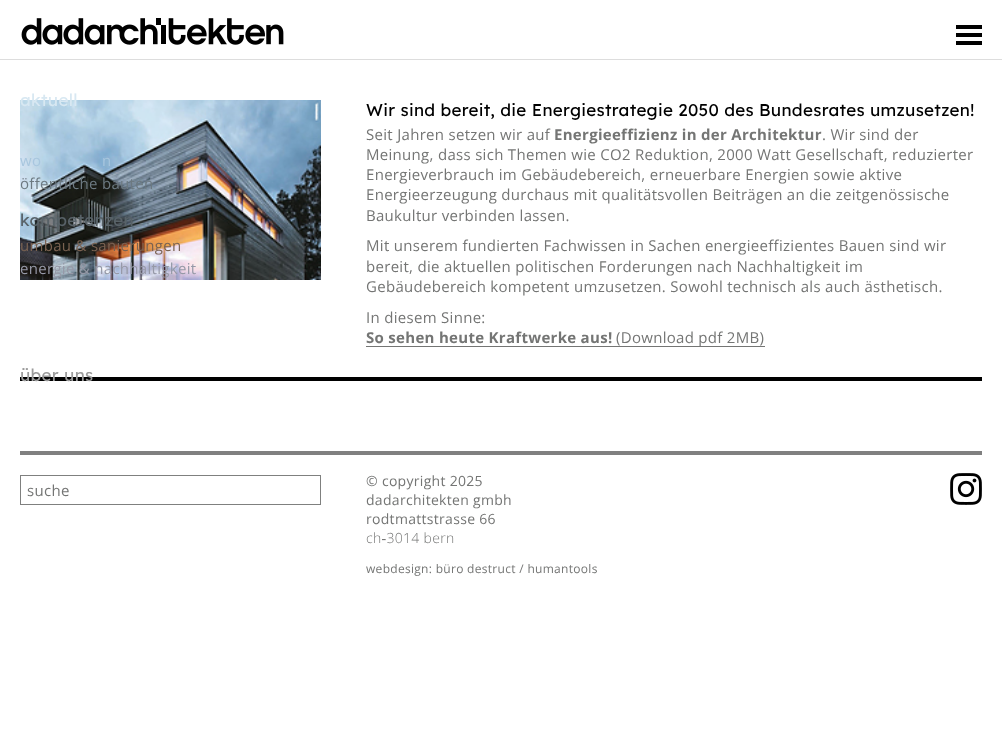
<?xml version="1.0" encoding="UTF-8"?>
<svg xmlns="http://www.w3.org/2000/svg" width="1002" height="743">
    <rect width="100%" height="100%" fill="#FFFFFF"/>
    <rect x="0" y="59" width="1002" height="1" fill="#DDDDDD"/>
    <image x="21" y="18" width="263" height="27" href="img_01.png"/>
    <rect x="956" y="33" width="26" height="4" fill="#000000"/>
    <rect x="956" y="25" width="26" height="4" fill="#000000"/>
    <rect x="956" y="41" width="26" height="4" fill="#000000"/>
    <image x="20" y="100" width="301" height="180" href="img_02.png"/>
    <text x="20" y="106" font-family="Lexend Deca" font-size="17" letter-spacing="0.3" fill="#D8E8F2">aktuell</text>
    <text x="20" y="166" font-family="Open Sans" font-size="15" letter-spacing="0.3" fill="#A8C6DE">wo</text>
    <text x="102" y="166" font-family="Open Sans" font-size="15" letter-spacing="0.3" fill="#A8C6DE">n</text>
    <text x="20" y="189" font-family="Open Sans" font-size="15" letter-spacing="0.3" fill="#6C7981">öffentliche bauten</text>
    <text x="20" y="226" font-family="Lexend Deca" font-size="17" letter-spacing="0.3" fill="#586268">kompetenzen</text>
    <text x="20" y="251" font-family="Open Sans" font-size="15" letter-spacing="0.3" fill="#7A6251">umbau &amp; sanierungen</text>
    <text x="20" y="274" font-family="Open Sans" font-size="15" letter-spacing="0.3" fill="#9699A7">energie &amp; nachhaltigkeit</text>
    <rect x="20" y="377" width="962" height="4" fill="#000000"/>
    <text x="20" y="381" font-family="Lexend Deca" font-size="17" letter-spacing="0.3" fill="#9B9B9B">über uns</text>
    <text x="366" y="116" font-family="Lexend Deca" font-size="17" letter-spacing="0.3" fill="#000000">Wir sind bereit, die Energiestrategie 2050 des Bundesrates umzusetzen!</text>
    <text x="366" y="140" font-family="Open Sans" font-size="15" letter-spacing="0.3" fill="#747574">Seit Jahren setzen wir auf</text>
    <text x="554" y="140" font-family="Open Sans" font-size="15" font-weight="700" letter-spacing="0.3" fill="#747574">Energieeffizienz in der Architektur</text>
    <text x="822" y="140" font-family="Open Sans" font-size="15" letter-spacing="0.3" fill="#747574">. Wir sind der</text>
    <text font-family="Open Sans" font-size="15" letter-spacing="0.3" fill="#747574">
        <tspan x="366" y="160">Meinung, dass sich Themen wie CO2 Reduktion, 2000 Watt Gesellschaft, reduzierter</tspan>
        <tspan x="366" y="180">Energieverbrauch im Gebäudebereich, erneuerbare Energien sowie aktive</tspan>
        <tspan x="366" y="200">Energieerzeugung durchaus mit qualitätsvollen Beiträgen an die zeitgenössische</tspan>
        <tspan x="366" y="221">Baukultur verbinden lassen.</tspan>
    </text>
    <text font-family="Open Sans" font-size="15" letter-spacing="0.3" fill="#747574">
        <tspan x="366" y="251">Mit unserem fundierten Fachwissen in Sachen energieeffizientes Bauen sind wir</tspan>
        <tspan x="366" y="272">bereit, die aktuellen politischen Forderungen nach Nachhaltigkeit im</tspan>
        <tspan x="366" y="292">Gebäudebereich kompetent umzusetzen. Sowohl technisch als auch ästhetisch.</tspan>
    </text>
    <text x="366" y="323" font-family="Open Sans" font-size="15" letter-spacing="0.3" fill="#747574">In diesem Sinne:</text>
    <text x="366" y="343" font-family="Open Sans" font-size="15" font-weight="700" letter-spacing="0.3" fill="#747574">So sehen heute Kraftwerke aus!</text>
    <rect x="366" y="346" width="399" height="1" fill="#747574"/>
    <text x="616" y="343" font-family="Open Sans" font-size="15" letter-spacing="0.3" fill="#747574">(Download pdf 2MB)</text>
    <rect x="20" y="451" width="962" height="4" fill="#808080"/>
    <rect x="20.5" y="475.5" width="300" height="29" fill="none" stroke="#7F807F"/>
    <text x="27" y="496" font-family="Open Sans" font-size="15" letter-spacing="0.3" fill="#747574">suche</text>
    <text font-family="Open Sans" font-size="14" letter-spacing="0.3" fill="#747574">
        <tspan x="366" y="486">© copyright 2025</tspan>
        <tspan x="366" y="505">dadarchitekten gmbh</tspan>
        <tspan x="366" y="524">rodtmattstrasse 66</tspan>
    </text>
    <text x="366" y="543" font-family="Open Sans" font-size="14" font-weight="300" letter-spacing="0.3" fill="#747574">ch‑3014 bern</text>
    <text x="366" y="573" font-family="Open Sans" font-size="12" letter-spacing="0.3" fill="#747574">webdesign: büro destruct / humantools</text>
    <image x="950" y="473" width="32" height="32" href="img_03.png"/>
</svg>
